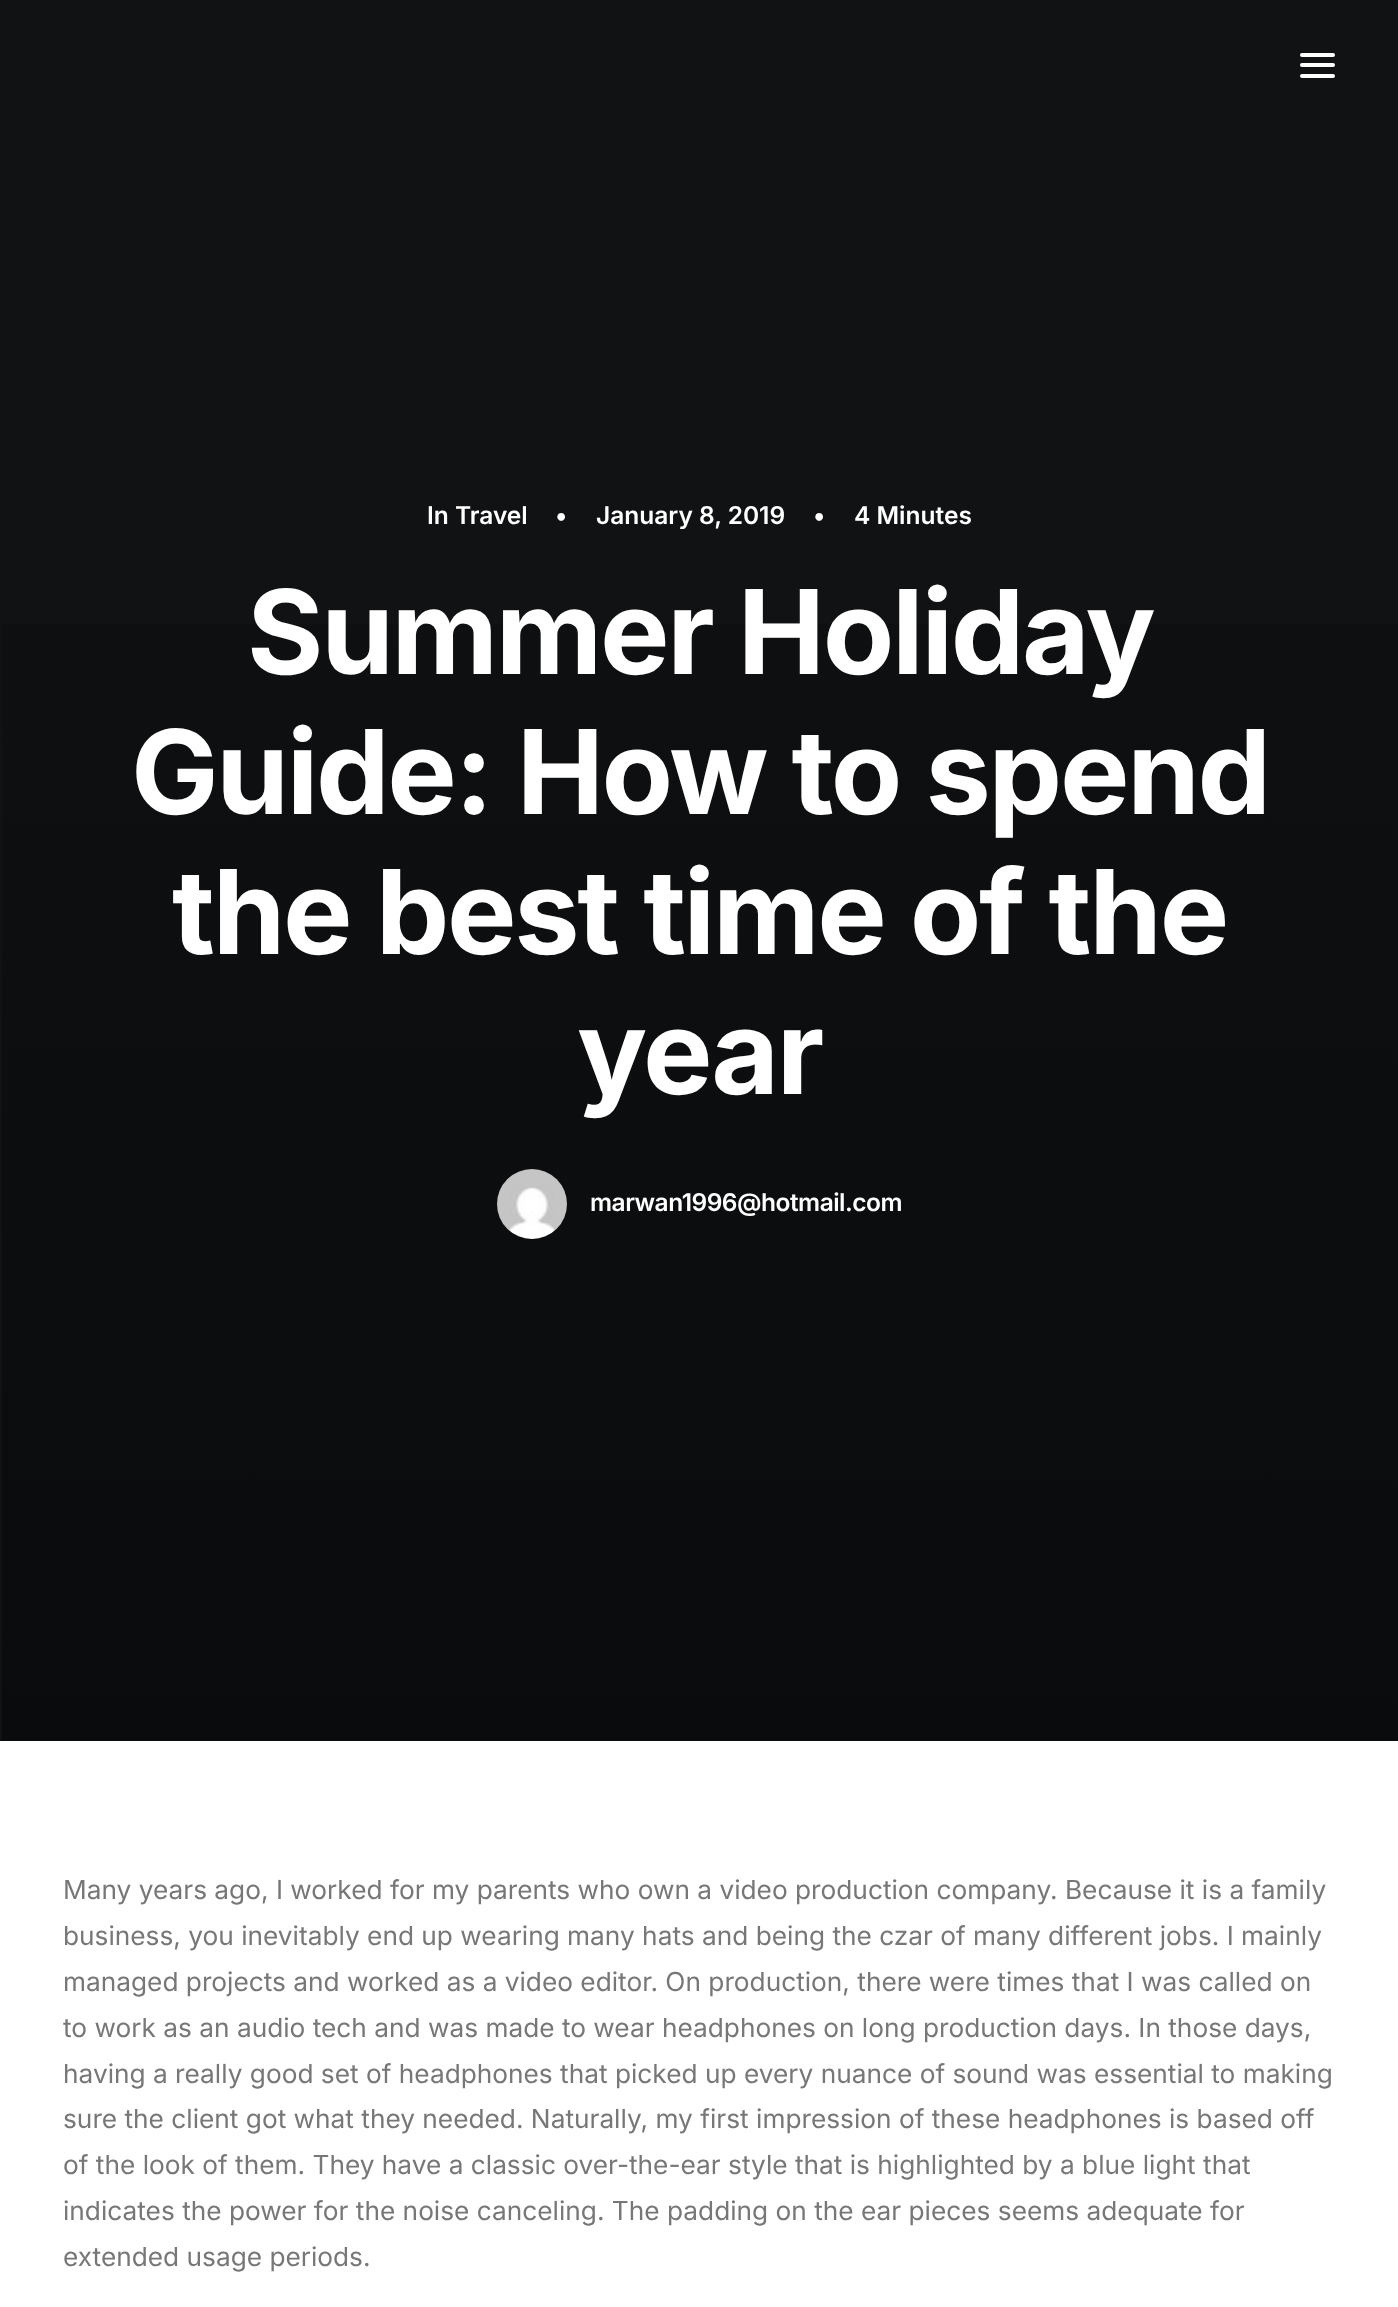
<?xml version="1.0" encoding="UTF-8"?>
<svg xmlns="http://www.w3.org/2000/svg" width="1398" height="2307">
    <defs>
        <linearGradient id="g1" gradientUnits="userSpaceOnUse" x1="700" y1="1.8" x2="700" y2="1743"><stop offset="0" stop-color="#101214"/><stop offset="1" stop-color="#0A0B0C"/></linearGradient>
    </defs>
    <rect width="100%" height="100%" fill="#101213"/>
    <rect x="1300" y="63" width="35" height="4" rx="2" fill="#FFFFFF"/>
    <rect x="1300" y="53" width="35" height="4" rx="2" fill="#FFFFFF"/>
    <rect x="1300" y="74" width="35" height="4" rx="2" fill="#FFFFFF"/>
    <text x="427" y="524" font-family="Inter" font-size="24.5" font-weight="600" fill="#FFFFFF">In Travel</text>
    <text x="555" y="524" font-family="Inter" font-size="24.5" font-weight="600" fill="#FFFFFF">•</text>
    <text x="596" y="524" font-family="Inter" font-size="24.5" font-weight="600" fill="#FFFFFF">January 8, 2019</text>
    <text x="813" y="524" font-family="Inter" font-size="24.5" font-weight="600" fill="#FFFFFF">•</text>
    <text x="854" y="524" font-family="Inter" font-size="24.5" font-weight="600" fill="#FFFFFF">4 Minutes</text>
    <rect x="2" y="624" width="1396" height="1117" fill="url(#g1)"/>
    <text x="247" y="674" font-family="Inter" font-size="116.75" font-weight="700" letter-spacing="-2.3" fill="#FFFFFF">Summer Holiday</text>
    <text x="131" y="814" font-family="Inter" font-size="116.75" font-weight="700" letter-spacing="-2.3" fill="#FFFFFF">Guide: How to spend</text>
    <text x="172" y="954" font-family="Inter" font-size="116.75" font-weight="700" letter-spacing="-2.3" fill="#FFFFFF">the best time of the</text>
    <text x="577" y="1094" font-family="Inter" font-size="116.75" font-weight="700" letter-spacing="-2.3" fill="#FFFFFF">year</text>
    <image x="497" y="1169" width="70" height="70" href="img_01.png"/>
    <text x="590" y="1211" font-family="Inter" font-size="24.5" font-weight="600" letter-spacing="-0.5" fill="#FFFFFF">marwan1996@hotmail.com</text>
    <rect x="0" y="1741" width="1398" height="566" fill="#FFFFFF"/>
    <text font-family="Inter" font-size="26.25" fill="#777777">
        <tspan x="63" y="1899">Many years ago, I worked for my parents who own a video production company. Because it is a family</tspan>
        <tspan x="63" y="1945">business, you inevitably end up wearing many hats and being the czar of many different jobs. I mainly</tspan>
        <tspan x="63" y="1991">managed projects and worked as a video editor. On production, there were times that I was called on</tspan>
        <tspan x="63" y="2037">to work as an audio tech and was made to wear headphones on long production days. In those days,</tspan>
        <tspan x="63" y="2083">having a really good set of headphones that picked up every nuance of sound was essential to making</tspan>
        <tspan x="63" y="2128">sure the client got what they needed. Naturally, my first impression of these headphones is based off</tspan>
        <tspan x="63" y="2174">of the look of them. They have a classic over-the-ear style that is highlighted by a blue light that</tspan>
        <tspan x="63" y="2220">indicates the power for the noise canceling. The padding on the ear pieces seems adequate for</tspan>
        <tspan x="63" y="2266">extended usage periods.</tspan>
    </text>
</svg>
